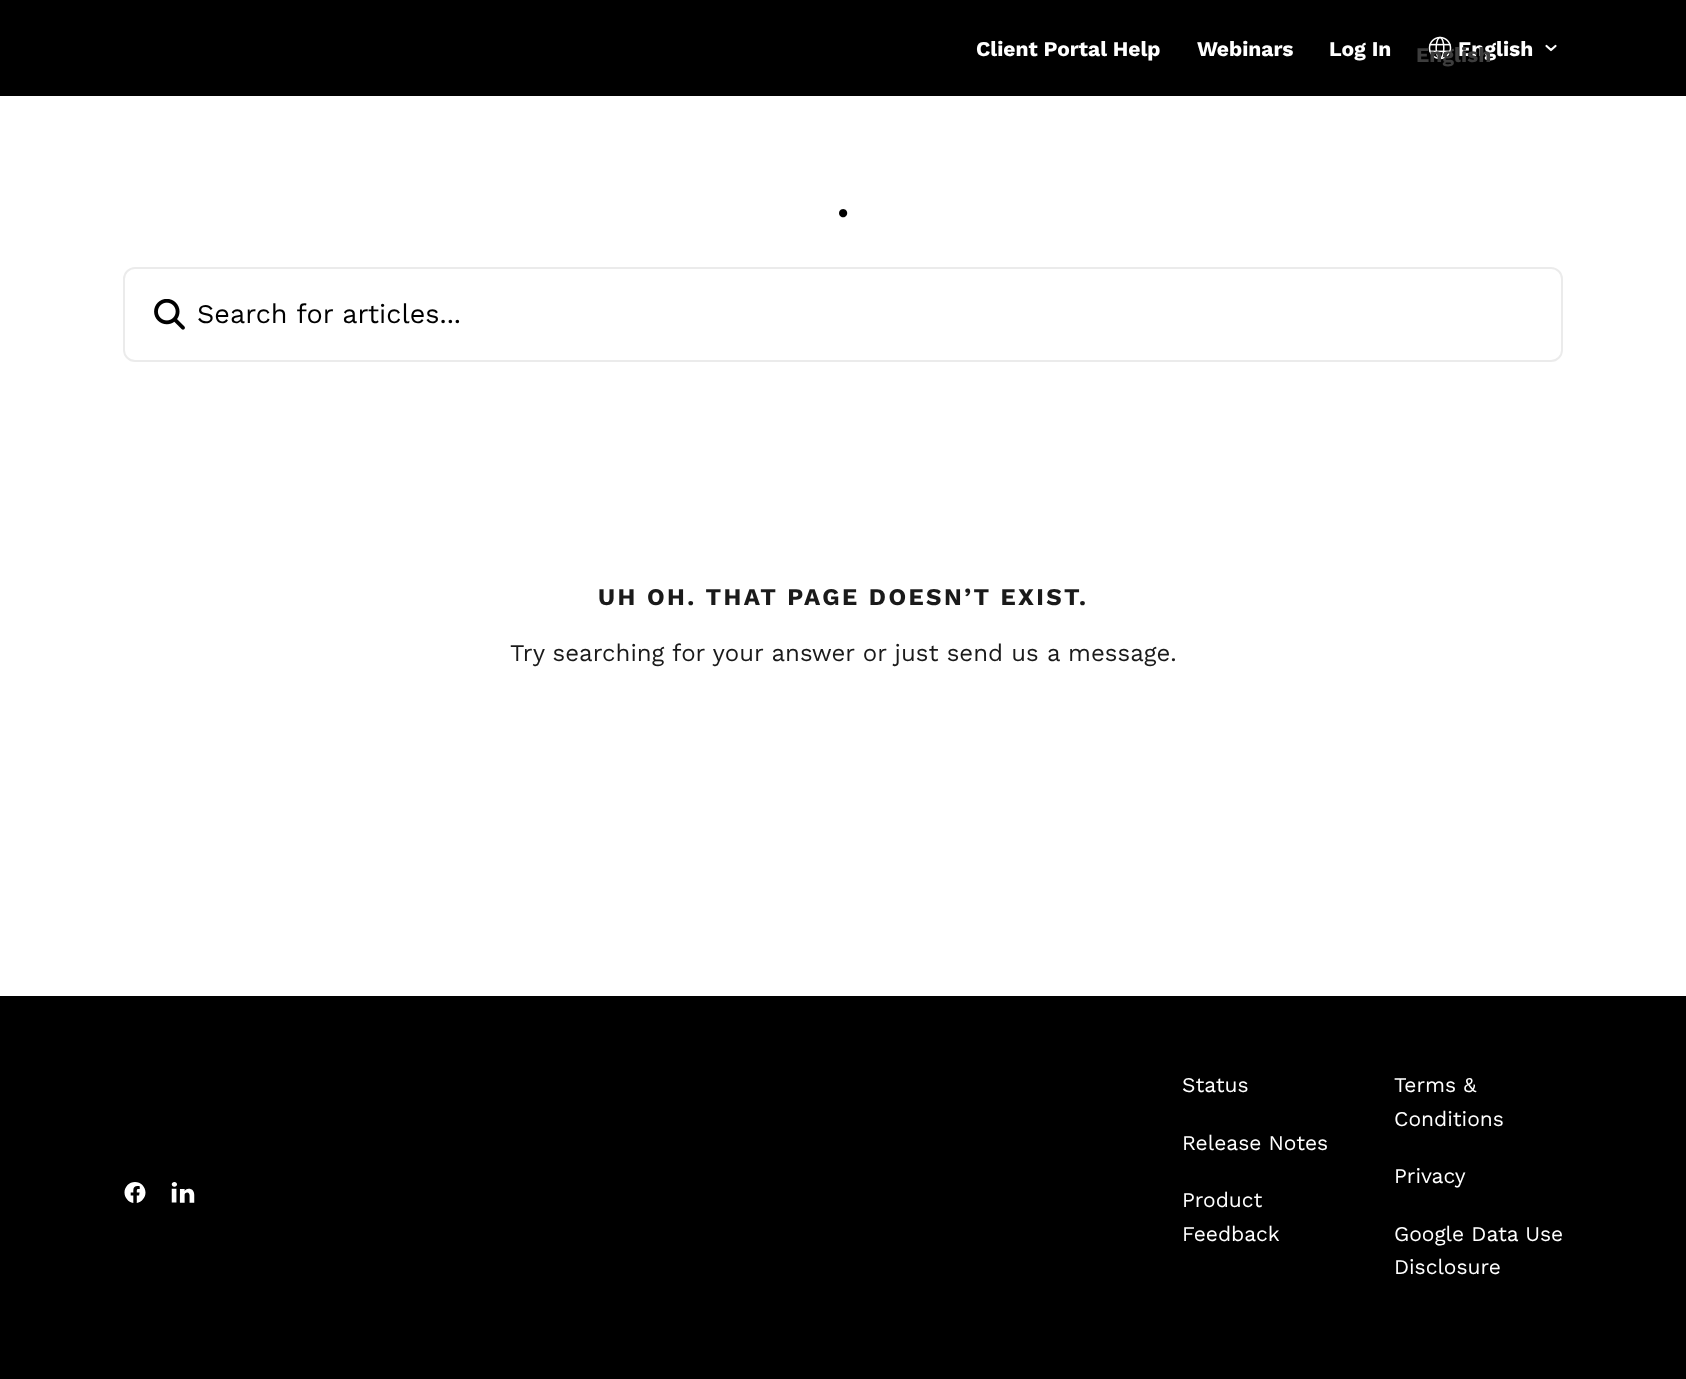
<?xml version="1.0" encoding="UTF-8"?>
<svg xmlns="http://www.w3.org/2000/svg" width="1686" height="1379">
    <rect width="100%" height="100%" fill="#FFFFFF"/>
    <rect x="0" y="0" width="1686" height="96" fill="#000000"/>
    <text x="976" y="56" font-family="Work Sans" font-size="21" font-weight="700" fill="#FFFFFF">Client Portal Help</text>
    <text x="1197" y="56" font-family="Work Sans" font-size="21" font-weight="700" fill="#FFFFFF">Webinars</text>
    <text x="1329" y="56" font-family="Work Sans" font-size="21" font-weight="700" fill="#FFFFFF">Log In</text>
    <image x="1428" y="36" width="24" height="24" href="img_01.png"/>
    <text x="1458" y="56" font-family="Work Sans" font-size="21" font-weight="700" fill="#FFFFFF">English</text>
    <text x="1416" y="62" font-family="Work Sans" font-size="21" font-weight="700" fill="#3D3D3D">English</text>
    <path d="M 1546.5 46 L 1551 50 L 1555.5 46" fill="none" stroke="#FFFFFF" stroke-width="2.2" stroke-linecap="round" stroke-linejoin="round"/>
    <text x="838" y="217" font-family="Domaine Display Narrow" font-size="42" font-weight="700" fill="#000000">.</text>
    <rect x="124" y="268" width="1438" height="93" rx="11" fill="none" stroke="#000000" stroke-opacity="0.08" stroke-width="2"/>
    <image x="154" y="299" width="31" height="31" href="img_02.png"/>
    <text x="197" y="323" font-family="Work Sans" font-size="27" fill="#000000">Search for articles...</text>
    <text x="598" y="605" font-family="Work Sans" font-size="24" font-weight="700" letter-spacing="2.4" fill="#1A1A1A">UH OH. THAT PAGE DOESN’T EXIST.</text>
    <text x="510" y="661" font-family="Work Sans" font-size="24" fill="#1A1A1A">Try searching for your answer or just send us a message.</text>
    <rect x="0" y="996" width="1686" height="383" fill="#000000"/>
    <image x="124" y="1182" width="22" height="21" href="img_03.png"/>
    <image x="171" y="1182" width="24" height="21" href="img_04.png"/>
    <text x="1182" y="1092" font-family="Work Sans" font-size="21" fill="#FFFFFF">Status</text>
    <text x="1182" y="1150" font-family="Work Sans" font-size="21" fill="#FFFFFF">Release Notes</text>
    <text font-family="Work Sans" font-size="21" fill="#FFFFFF">
        <tspan x="1182" y="1207">Product</tspan>
        <tspan x="1182" y="1241">Feedback</tspan>
    </text>
    <text font-family="Work Sans" font-size="21" fill="#FFFFFF">
        <tspan x="1394" y="1092">Terms &amp;</tspan>
        <tspan x="1394" y="1126">Conditions</tspan>
    </text>
    <text x="1394" y="1183" font-family="Work Sans" font-size="21" fill="#FFFFFF">Privacy</text>
    <text font-family="Work Sans" font-size="21" fill="#FFFFFF">
        <tspan x="1394" y="1241">Google Data Use</tspan>
        <tspan x="1394" y="1274">Disclosure</tspan>
    </text>
</svg>
